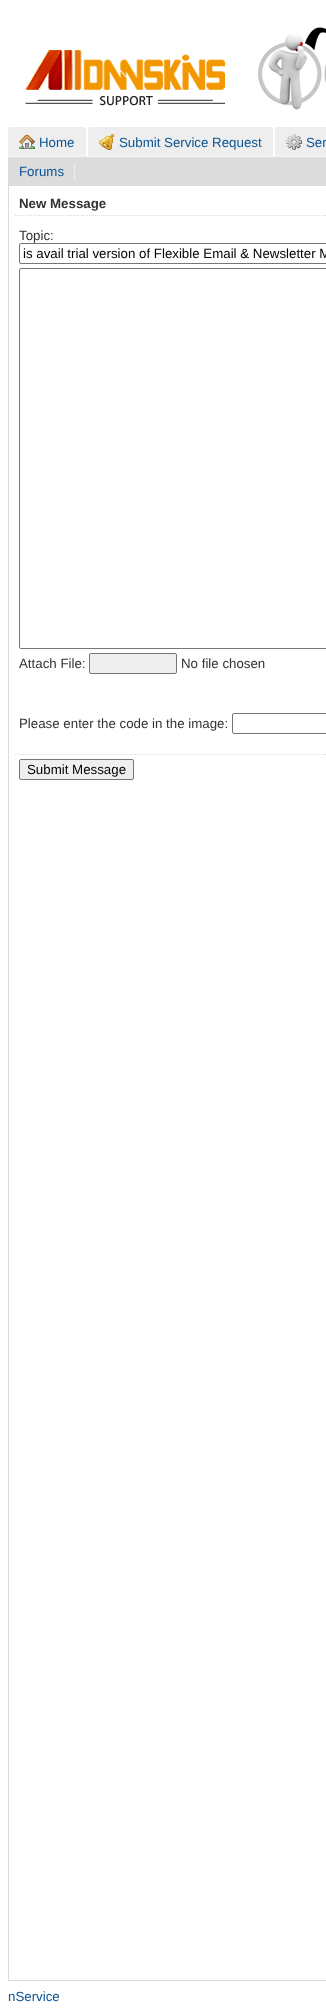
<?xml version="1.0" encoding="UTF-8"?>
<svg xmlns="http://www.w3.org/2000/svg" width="326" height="2016">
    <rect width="100%" height="100%" fill="#FFFFFF"/>
    <rect x="8" y="156" width="318" height="1" fill="#F5F5F5"/>
    <image x="24" y="27" width="302" height="83" href="img_01.png"/>
    <rect x="8" y="128" width="78" height="28" fill="#EEEEEE"/>
    <rect x="9" y="127" width="76" height="1" fill="#EEEEEE"/>
    <image x="19" y="134" width="16" height="15" href="img_02.png"/>
    <text x="39" y="147" font-family="Liberation Sans" font-size="13.3" fill="#0B5394">Home</text>
    <rect x="88" y="128" width="185" height="28" fill="#EEEEEE"/>
    <rect x="89" y="127" width="183" height="1" fill="#EEEEEE"/>
    <image x="99" y="134" width="15" height="16" href="img_03.png"/>
    <text x="119" y="147" font-family="Liberation Sans" font-size="13.3" fill="#0B5394">Submit Service Request</text>
    <rect x="275" y="128" width="51" height="28" fill="#EEEEEE"/>
    <rect x="276" y="127" width="50" height="1" fill="#EEEEEE"/>
    <image x="286" y="134" width="16" height="16" href="img_04.png"/>
    <text x="306" y="147" font-family="Liberation Sans" font-size="13.3" fill="#0B5394">Ser</text>
    <rect x="8" y="157" width="318" height="29" fill="#DCDCDC"/>
    <rect x="74" y="163" width="1" height="17" fill="#EEEEEE"/>
    <text x="19" y="176" font-family="Liberation Sans" font-size="13.3" fill="#0B5394">Forums</text>
    <rect x="8" y="186" width="1" height="1794" fill="#DCDCDC"/>
    <path d="M 15 215.5 H 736" fill="none" stroke="#DCDCDC" stroke-dasharray="1 1"/>
    <text x="19" y="208" font-family="Liberation Sans" font-size="13.3" font-weight="700" fill="#333333">New Message</text>
    <text x="19" y="240" font-family="Liberation Sans" font-size="13.3" fill="#333333">Topic:</text>
    <rect x="19.5" y="243.5" width="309" height="20" rx="1.5" fill="none" stroke="#767676"/>
    <text x="23" y="258" font-family="Liberation Sans" font-size="13.3" fill="#000000">is avail trial version of Flexible Email &amp; Newsletter M</text>
    <rect x="19.5" y="268.5" width="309" height="380" rx="1.5" fill="none" stroke="#767676"/>
    <text x="19" y="668" font-family="Liberation Sans" font-size="13.3" fill="#333333">Attach File:</text>
    <rect x="89.5" y="653.5" width="87" height="20" rx="1.5" fill="#EFEFEF" stroke="#767676"/>
    <text x="181" y="668" font-family="Liberation Sans" font-size="13.3" fill="#333333">No file chosen</text>
    <text x="19" y="728" font-family="Liberation Sans" font-size="13.3" fill="#333333">Please enter the code in the image:</text>
    <rect x="232.5" y="713.5" width="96" height="20" rx="1.5" fill="none" stroke="#767676"/>
    <path d="M 15 754.5 H 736" fill="none" stroke="#DCDCDC" stroke-dasharray="1 1"/>
    <rect x="19.5" y="759.5" width="114" height="20" rx="1.5" fill="#EFEFEF" stroke="#767676"/>
    <text x="27" y="774" font-family="Liberation Sans" font-size="13.3" fill="#000000">Submit Message</text>
    <rect x="8" y="1980" width="318" height="1" fill="#DCDCDC"/>
    <text x="8" y="2001" font-family="Liberation Sans" font-size="13.3" fill="#0B5394">nService</text>
</svg>
